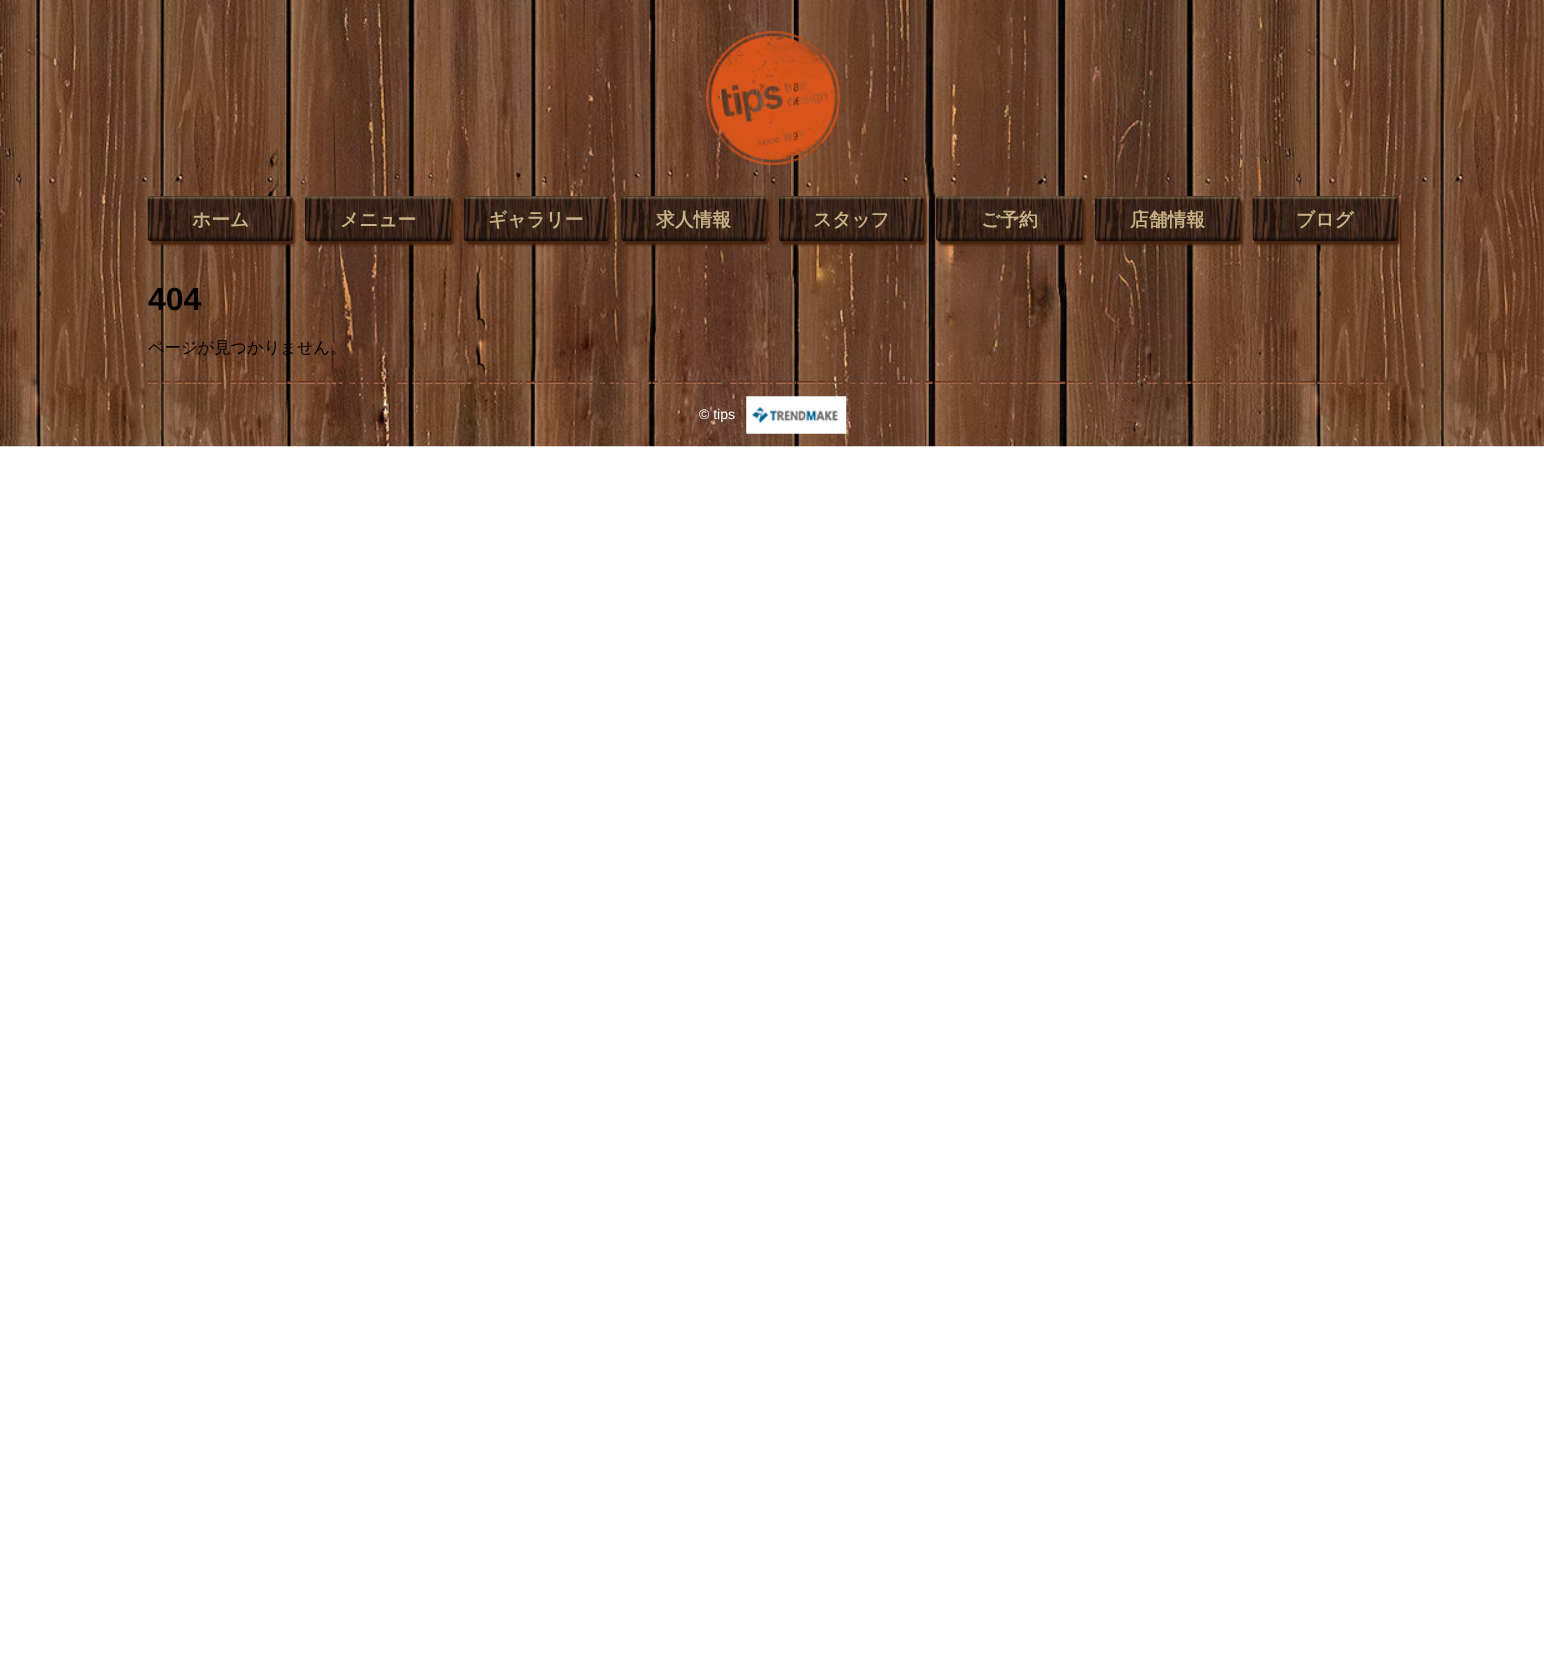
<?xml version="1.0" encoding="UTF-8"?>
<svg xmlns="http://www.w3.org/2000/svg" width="1544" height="1666">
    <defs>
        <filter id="blur1" x="-50%" y="-200%" width="200%" height="500%"><feGaussianBlur stdDeviation="1"/></filter>
    </defs>
    <rect width="100%" height="100%" fill="#FFFFFF"/>
    <image x="0" y="0" width="1544" height="447" href="img_01.png"/>
    <image x="706" y="31" width="134" height="134" href="img_02.png"/>
    <rect x="150" y="200" width="145" height="45" rx="4" fill="#46230F" filter="url(#blur1)"/>
    <rect x="148" y="196" width="145" height="45" rx="4" fill="#352118"/>
    <image x="147" y="196" width="146" height="45" href="img_03.png"/>
    <text x="192" y="226" font-family="WenQuanYi Zen Hei" font-size="18.75" font-weight="700" fill="#C7B185">ホーム</text>
    <rect x="308" y="200" width="146" height="45" rx="4" fill="#46230F" filter="url(#blur1)"/>
    <rect x="305" y="196" width="146" height="45" rx="4" fill="#352118"/>
    <image x="305" y="196" width="146" height="46" href="img_04.png"/>
    <text x="340" y="226" font-family="WenQuanYi Zen Hei" font-size="18.75" font-weight="700" fill="#C7B185">メニュー</text>
    <rect x="466" y="200" width="145" height="45" rx="4" fill="#46230F" filter="url(#blur1)"/>
    <rect x="464" y="196" width="145" height="45" rx="4" fill="#352118"/>
    <image x="463" y="196" width="146" height="45" href="img_05.png"/>
    <text x="488" y="226" font-family="WenQuanYi Zen Hei" font-size="18.75" font-weight="700" fill="#C7B185">ギャラリー</text>
    <rect x="624" y="200" width="145" height="45" rx="4" fill="#46230F" filter="url(#blur1)"/>
    <rect x="621" y="196" width="145" height="45" rx="4" fill="#352118"/>
    <image x="621" y="196" width="145" height="45" href="img_06.png"/>
    <text x="656" y="226" font-family="WenQuanYi Zen Hei" font-size="18.75" font-weight="700" fill="#C7B185">求人情報</text>
    <rect x="781" y="200" width="145" height="45" rx="4" fill="#46230F" filter="url(#blur1)"/>
    <rect x="779" y="196" width="145" height="45" rx="4" fill="#352118"/>
    <image x="778" y="196" width="146" height="45" href="img_07.png"/>
    <text x="813" y="226" font-family="WenQuanYi Zen Hei" font-size="18.75" font-weight="700" fill="#C7B185">スタッフ</text>
    <rect x="939" y="200" width="146" height="45" rx="4" fill="#46230F" filter="url(#blur1)"/>
    <rect x="936" y="196" width="147" height="45" rx="4" fill="#352118"/>
    <image x="936" y="196" width="147" height="46" href="img_08.png"/>
    <text x="981" y="226" font-family="WenQuanYi Zen Hei" font-size="18.75" font-weight="700" fill="#C7B185">ご予約</text>
    <rect x="1098" y="200" width="145" height="45" rx="4" fill="#46230F" filter="url(#blur1)"/>
    <rect x="1095" y="196" width="145" height="45" rx="4" fill="#352118"/>
    <image x="1095" y="196" width="145" height="45" href="img_09.png"/>
    <text x="1130" y="226" font-family="WenQuanYi Zen Hei" font-size="18.75" font-weight="700" fill="#C7B185">店舗情報</text>
    <rect x="1255" y="200" width="145" height="45" rx="4" fill="#46230F" filter="url(#blur1)"/>
    <rect x="1253" y="196" width="145" height="45" rx="4" fill="#352118"/>
    <image x="1252" y="196" width="146" height="45" href="img_10.png"/>
    <text x="1296" y="226" font-family="WenQuanYi Zen Hei" font-size="18.75" font-weight="700" fill="#C7B185">ブログ</text>
    <text x="148" y="310" font-family="Liberation Sans" font-size="32" font-weight="700" fill="#010101">404</text>
    <text x="148" y="353" font-family="WenQuanYi Zen Hei" font-size="16.25" font-weight="500" fill="#010101">ページが見つかりません。</text>
    <image x="147" y="381" width="1251" height="3" href="img_11.png"/>
    <text x="699" y="419" font-family="Liberation Sans" font-size="14" fill="#FFFFFF">© tips</text>
    <image x="746" y="396" width="101" height="38" href="img_12.png"/>
</svg>
